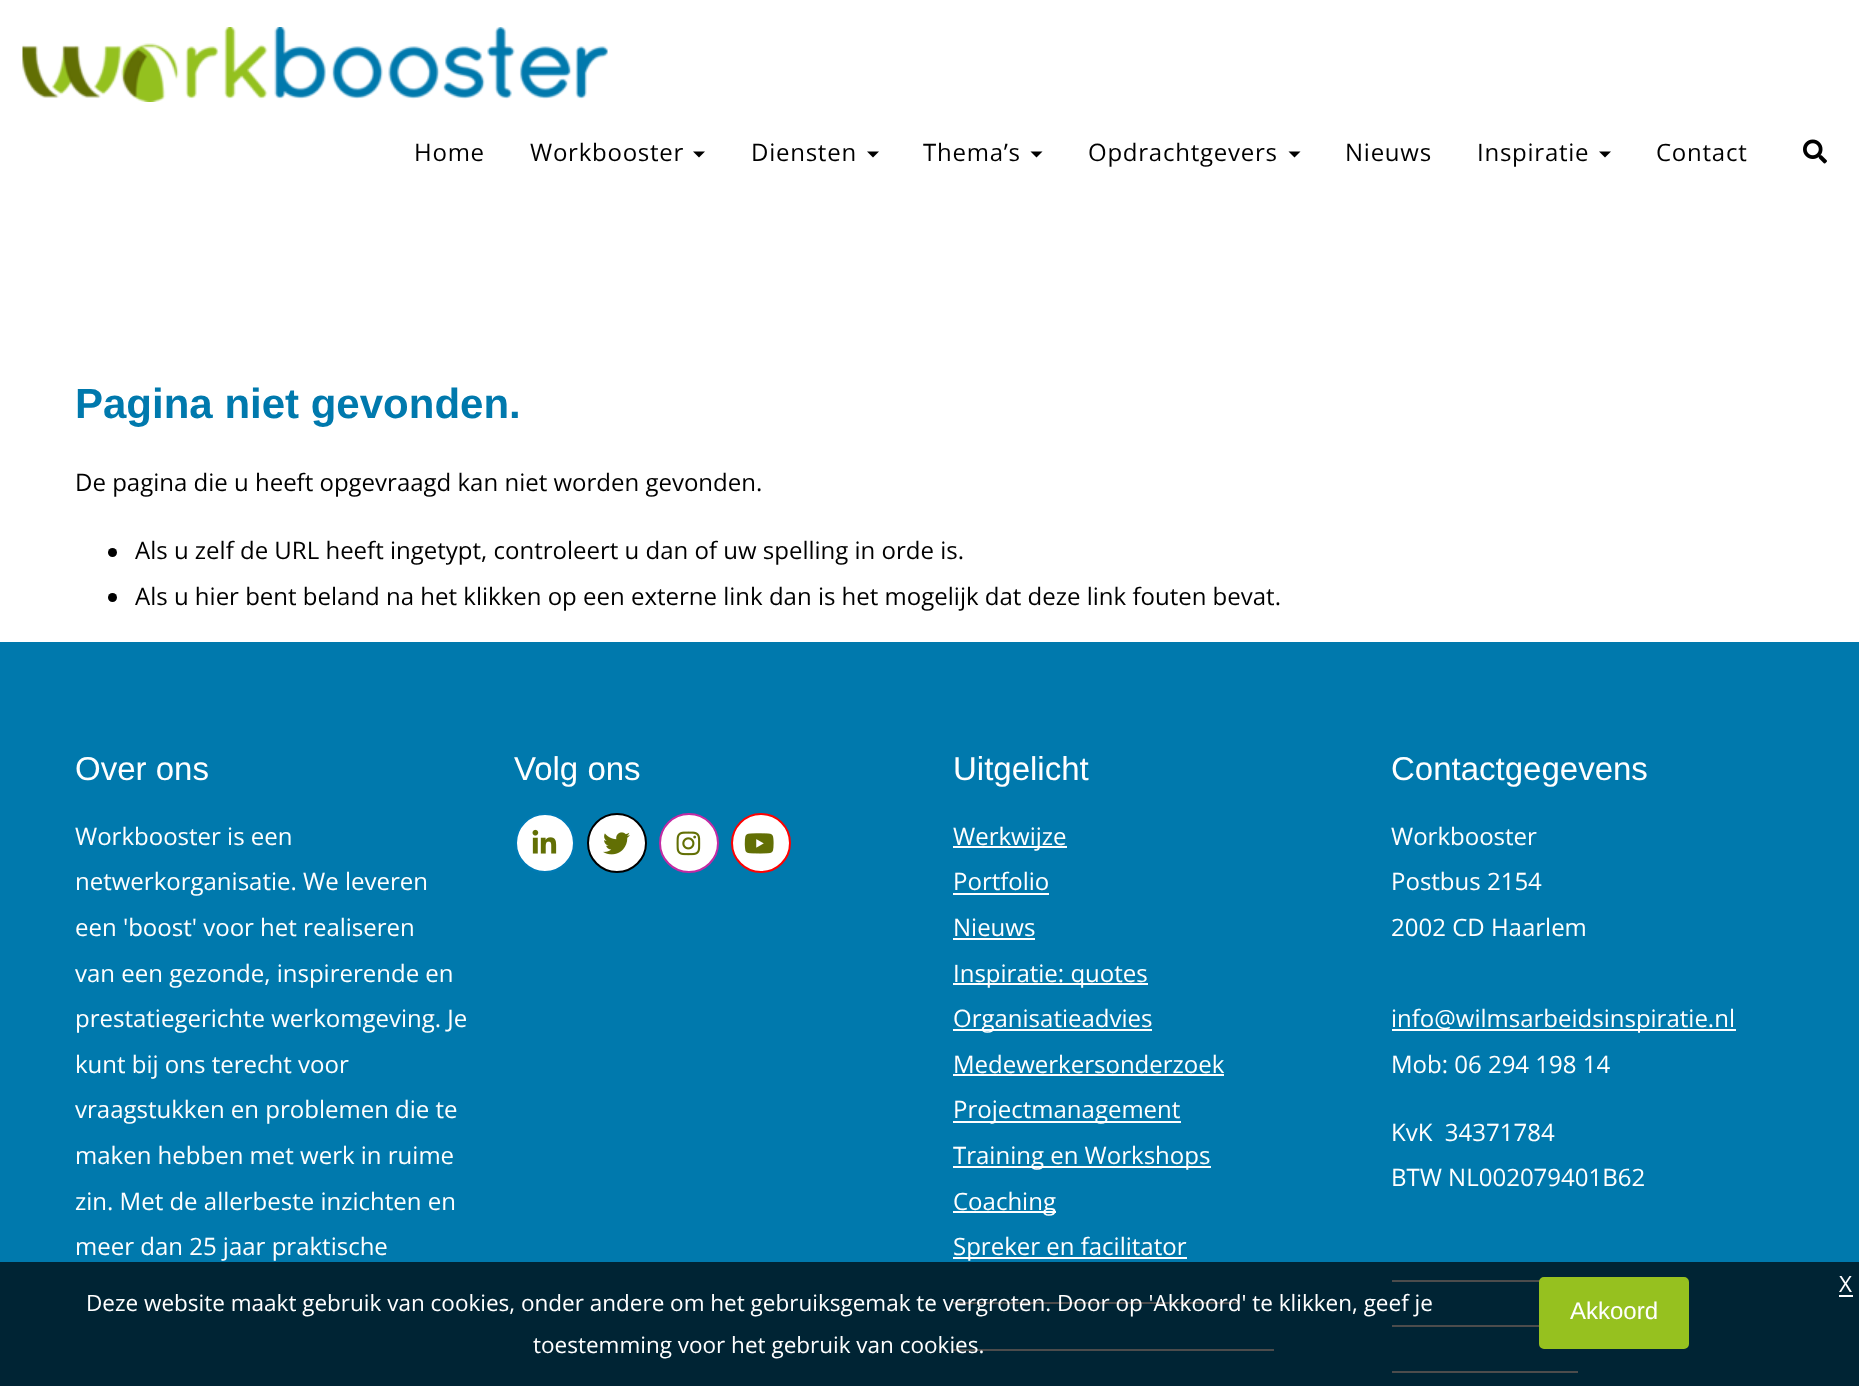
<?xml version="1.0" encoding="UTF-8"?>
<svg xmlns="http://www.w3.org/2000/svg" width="1859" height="1386">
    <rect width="100%" height="100%" fill="#FFFFFF"/>
    <image x="22" y="27" width="586" height="75" href="img_01.png"/>
    <text x="414" y="161" font-family="Open Sans" font-size="24" letter-spacing="0.75" fill="#000000">Home</text>
    <text x="530" y="161" font-family="Open Sans" font-size="24" letter-spacing="0.75" fill="#000000">Workbooster</text>
    <path d="M 693 151.5 H 705 L 699 157.5 Z" fill="#000000"/>
    <text x="751" y="161" font-family="Open Sans" font-size="24" letter-spacing="0.75" fill="#000000">Diensten</text>
    <path d="M 867 151.5 H 879 L 873 157.5 Z" fill="#000000"/>
    <text x="923" y="161" font-family="Open Sans" font-size="24" letter-spacing="0.75" fill="#000000">Thema’s</text>
    <path d="M 1030.5 151.5 H 1042.5 L 1036.5 157.5 Z" fill="#000000"/>
    <text x="1088" y="161" font-family="Open Sans" font-size="24" letter-spacing="0.75" fill="#000000">Opdrachtgevers</text>
    <path d="M 1288.5 151.5 H 1300.5 L 1294.5 157.5 Z" fill="#000000"/>
    <text x="1345" y="161" font-family="Open Sans" font-size="24" letter-spacing="0.75" fill="#000000">Nieuws</text>
    <text x="1477" y="161" font-family="Open Sans" font-size="24" letter-spacing="0.75" fill="#000000">Inspiratie</text>
    <path d="M 1599 151.5 H 1611 L 1605 157.5 Z" fill="#000000"/>
    <text x="1656" y="161" font-family="Open Sans" font-size="24" letter-spacing="0.75" fill="#000000">Contact</text>
    <image x="1803" y="139" width="24" height="25" href="img_02.png"/>
    <text x="75" y="418" font-family="Arimo" font-size="42" font-weight="700" fill="#0079AD">Pagina niet gevonden.</text>
    <text x="75" y="491" font-family="Open Sans" font-size="24" fill="#000000">De pagina die u heeft opgevraagd kan niet worden gevonden.</text>
    <circle cx="112.5" cy="552.5" r="4.5" fill="#000000"/>
    <text x="135" y="559" font-family="Open Sans" font-size="24" fill="#000000">Als u zelf de URL heeft ingetypt, controleert u dan of uw spelling in orde is.</text>
    <circle cx="112.5" cy="597.5" r="4.5" fill="#000000"/>
    <text x="135" y="605" font-family="Open Sans" font-size="24" fill="#000000">Als u hier bent beland na het klikken op een externe link dan is het mogelijk dat deze link fouten bevat.</text>
    <rect x="0" y="642" width="1859" height="744" fill="#0079AD"/>
    <text x="75" y="780" font-family="Arimo" font-size="33" fill="#FFFFFF">Over ons</text>
    <text font-family="Open Sans" font-size="24" fill="#FFFFFF">
        <tspan x="75" y="845">Workbooster is een</tspan>
        <tspan x="75" y="890">netwerkorganisatie. We leveren</tspan>
        <tspan x="75" y="936">een 'boost' voor het realiseren</tspan>
        <tspan x="75" y="982">van een gezonde, inspirerende en</tspan>
        <tspan x="75" y="1027">prestatiegerichte werkomgeving. Je</tspan>
        <tspan x="75" y="1073">kunt bij ons terecht voor</tspan>
        <tspan x="75" y="1118">vraagstukken en problemen die te</tspan>
        <tspan x="75" y="1164">maken hebben met werk in ruime</tspan>
        <tspan x="75" y="1210">zin. Met de allerbeste inzichten en</tspan>
        <tspan x="75" y="1255">meer dan 25 jaar praktische</tspan>
    </text>
    <text x="514" y="780" font-family="Arimo" font-size="33" fill="#FFFFFF">Volg ons</text>
    <circle cx="545" cy="843" r="29" fill="#FFFFFF" stroke="#007BB6" stroke-width="2"/>
    <image x="532" y="829" width="25" height="25" href="img_03.png"/>
    <circle cx="617" cy="843" r="29" fill="#FFFFFF" stroke="#000000" stroke-width="2"/>
    <image x="603" y="832" width="27" height="23" href="img_04.png"/>
    <circle cx="689" cy="843" r="29" fill="#FFFFFF" stroke="#C32AA3" stroke-width="2"/>
    <image x="676" y="831" width="25" height="25" href="img_05.png"/>
    <circle cx="761" cy="843" r="29" fill="#FFFFFF" stroke="#FF0000" stroke-width="2"/>
    <image x="744" y="833" width="30" height="21" href="img_06.png"/>
    <text x="953" y="780" font-family="Arimo" font-size="33" fill="#FFFFFF">Uitgelicht</text>
    <rect x="953" y="846" width="114" height="2" fill="#FFFFFF"/>
    <text font-family="Open Sans" font-size="24" fill="#FFFFFF">
        <tspan x="953" y="845">Werkwijze</tspan>
        <tspan x="953" y="890">Portfolio</tspan>
    </text>
    <rect x="953" y="893" width="96" height="2" fill="#FFFFFF"/>
    <text x="953" y="936" font-family="Open Sans" font-size="24" fill="#FFFFFF">Nieuws</text>
    <rect x="953" y="938" width="82" height="2" fill="#FFFFFF"/>
    <rect x="953" y="983" width="195" height="2" fill="#FFFFFF"/>
    <text x="953" y="982" font-family="Open Sans" font-size="24" fill="#FFFFFF">Inspiratie: quotes</text>
    <rect x="953" y="1029" width="199" height="2" fill="#FFFFFF"/>
    <text font-family="Open Sans" font-size="24" fill="#FFFFFF">
        <tspan x="953" y="1027">Organisatieadvies</tspan>
        <tspan x="953" y="1073">Medewerkersonderzoek</tspan>
    </text>
    <rect x="953" y="1074" width="271" height="2" fill="#FFFFFF"/>
    <rect x="953" y="1121" width="228" height="2" fill="#FFFFFF"/>
    <text x="953" y="1118" font-family="Open Sans" font-size="24" fill="#FFFFFF">Projectmanagement</text>
    <rect x="953" y="1166" width="258" height="2" fill="#FFFFFF"/>
    <text x="953" y="1164" font-family="Open Sans" font-size="24" fill="#FFFFFF">Training en Workshops</text>
    <rect x="953" y="1211" width="103" height="2" fill="#FFFFFF"/>
    <text x="953" y="1210" font-family="Open Sans" font-size="24" fill="#FFFFFF">Coaching</text>
    <rect x="953" y="1257" width="234" height="2" fill="#FFFFFF"/>
    <text x="953" y="1255" font-family="Open Sans" font-size="24" fill="#FFFFFF">Spreker en facilitator</text>
    <rect x="953" y="1302" width="286" height="2" fill="#FFFFFF"/>
    <rect x="953" y="1349" width="321" height="2" fill="#FFFFFF"/>
    <text x="1391" y="780" font-family="Arimo" font-size="33" fill="#FFFFFF">Contactgegevens</text>
    <text font-family="Open Sans" font-size="24" fill="#FFFFFF">
        <tspan x="1391" y="845">Workbooster</tspan>
        <tspan x="1391" y="890">Postbus 2154</tspan>
        <tspan x="1391" y="936">2002 CD Haarlem</tspan>
    </text>
    <rect x="1392" y="1029" width="344" height="2" fill="#FFFFFF"/>
    <text font-family="Open Sans" font-size="24" fill="#FFFFFF">
        <tspan x="1391" y="1027">info@wilmsarbeidsinspiratie.nl</tspan>
        <tspan x="1391" y="1073">Mob: 06 294 198 14</tspan>
    </text>
    <text font-family="Open Sans" font-size="24" fill="#FFFFFF" xml:space="preserve"><tspan x="1391" y="1141">KvK  34371784</tspan><tspan x="1391" y="1186">BTW NL002079401B62</tspan></text>
    <rect x="1392" y="1280" width="148" height="2" fill="#FFFFFF"/>
    <rect x="1392" y="1325" width="147" height="2" fill="#FFFFFF"/>
    <rect x="1392" y="1371" width="186" height="2" fill="#FFFFFF"/>
    <rect x="0" y="1262" width="1859" height="124" fill="#000000" fill-opacity="0.7"/>
    <text x="1839" y="1292" font-family="Open Sans" font-size="22.5" fill="#FFFFFF">X</text>
    <rect x="1839" y="1295" width="14" height="2" fill="#FFFFFF"/>
    <text x="86" y="1311" font-family="Open Sans" font-size="22.5" fill="#FFFFFF">Deze website maakt gebruik van cookies, onder andere om het gebruiksgemak te vergroten. Door op 'Akkoord' te klikken, geef je</text>
    <text x="533" y="1353" font-family="Open Sans" font-size="22.5" fill="#FFFFFF">toestemming voor het gebruik van cookies.</text>
    <rect x="1540" y="1278" width="148" height="70" rx="4" fill="#96C11F" stroke="#96C11F" stroke-width="2"/>
    <text x="1570" y="1319" font-family="Arimo" font-size="24" fill="#FFFFFF">Akkoord</text>
</svg>
